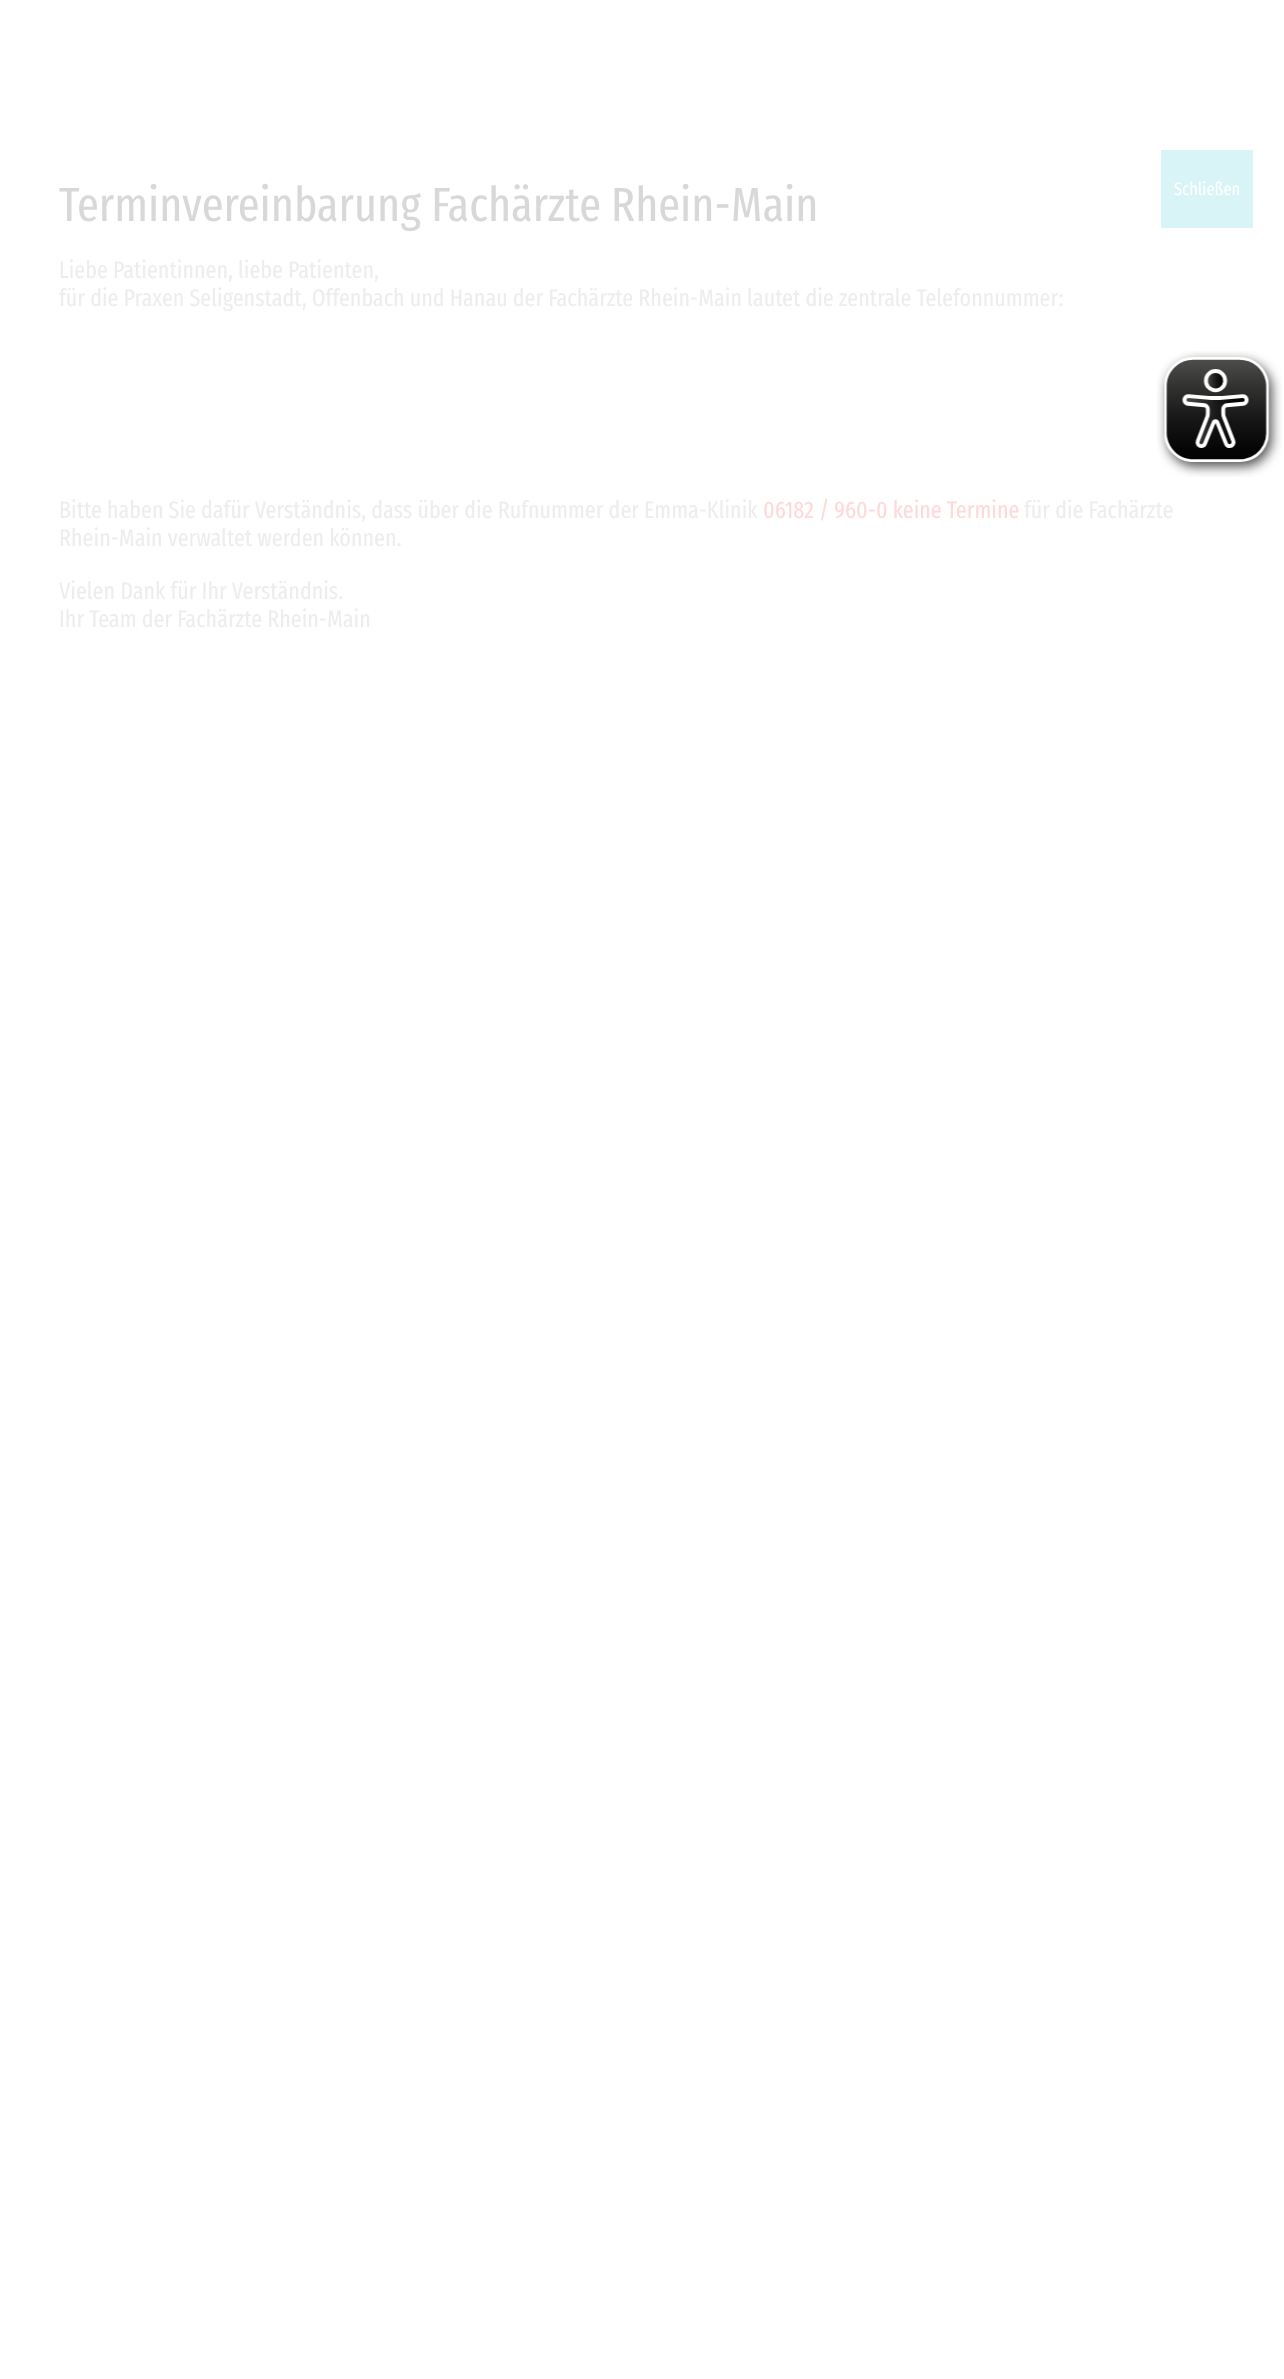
<?xml version="1.0" encoding="UTF-8"?>
<svg xmlns="http://www.w3.org/2000/svg" width="1284" height="2379">
    <rect width="100%" height="100%" fill="#FFFFFF"/>
    <text x="59" y="221" font-family="Fira Sans Extra Condensed" font-size="48" fill="#D8D8D8">Terminvereinbarung Fachärzte Rhein-Main</text>
    <rect x="1161" y="150" width="92" height="78" fill="#D8F4F7"/>
    <text x="1174" y="195" font-family="Fira Sans Extra Condensed" font-size="18" fill="#FFFFFF">Schließen</text>
    <text font-family="Fira Sans Extra Condensed" font-size="24" fill="#EDEDED">
        <tspan x="59" y="278">Liebe Patientinnen, liebe Patienten,</tspan>
        <tspan x="59" y="306">für die Praxen Seligenstadt, Offenbach und Hanau der Fachärzte Rhein-Main lautet die zentrale Telefonnummer:</tspan>
    </text>
    <text x="59" y="518" font-family="Fira Sans Extra Condensed" font-size="24" fill="#EDEDED">Bitte haben Sie dafür Verständnis, dass über die Rufnummer der Emma-Klinik</text>
    <text x="763" y="518" font-family="Fira Sans Extra Condensed" font-size="24" fill="#FFD8D8">06182 / 960-0 keine Termine</text>
    <text x="1024" y="518" font-family="Fira Sans Extra Condensed" font-size="24" fill="#EDEDED">für die Fachärzte</text>
    <text x="59" y="546" font-family="Fira Sans Extra Condensed" font-size="24" fill="#EDEDED">Rhein-Main verwaltet werden können.</text>
    <text font-family="Fira Sans Extra Condensed" font-size="24" fill="#EDEDED">
        <tspan x="59" y="599">Vielen Dank für Ihr Verständnis.</tspan>
        <tspan x="59" y="627">Ihr Team der Fachärzte Rhein-Main</tspan>
    </text>
    <image x="1157" y="351" width="125" height="126" href="img_01.png"/>
</svg>
